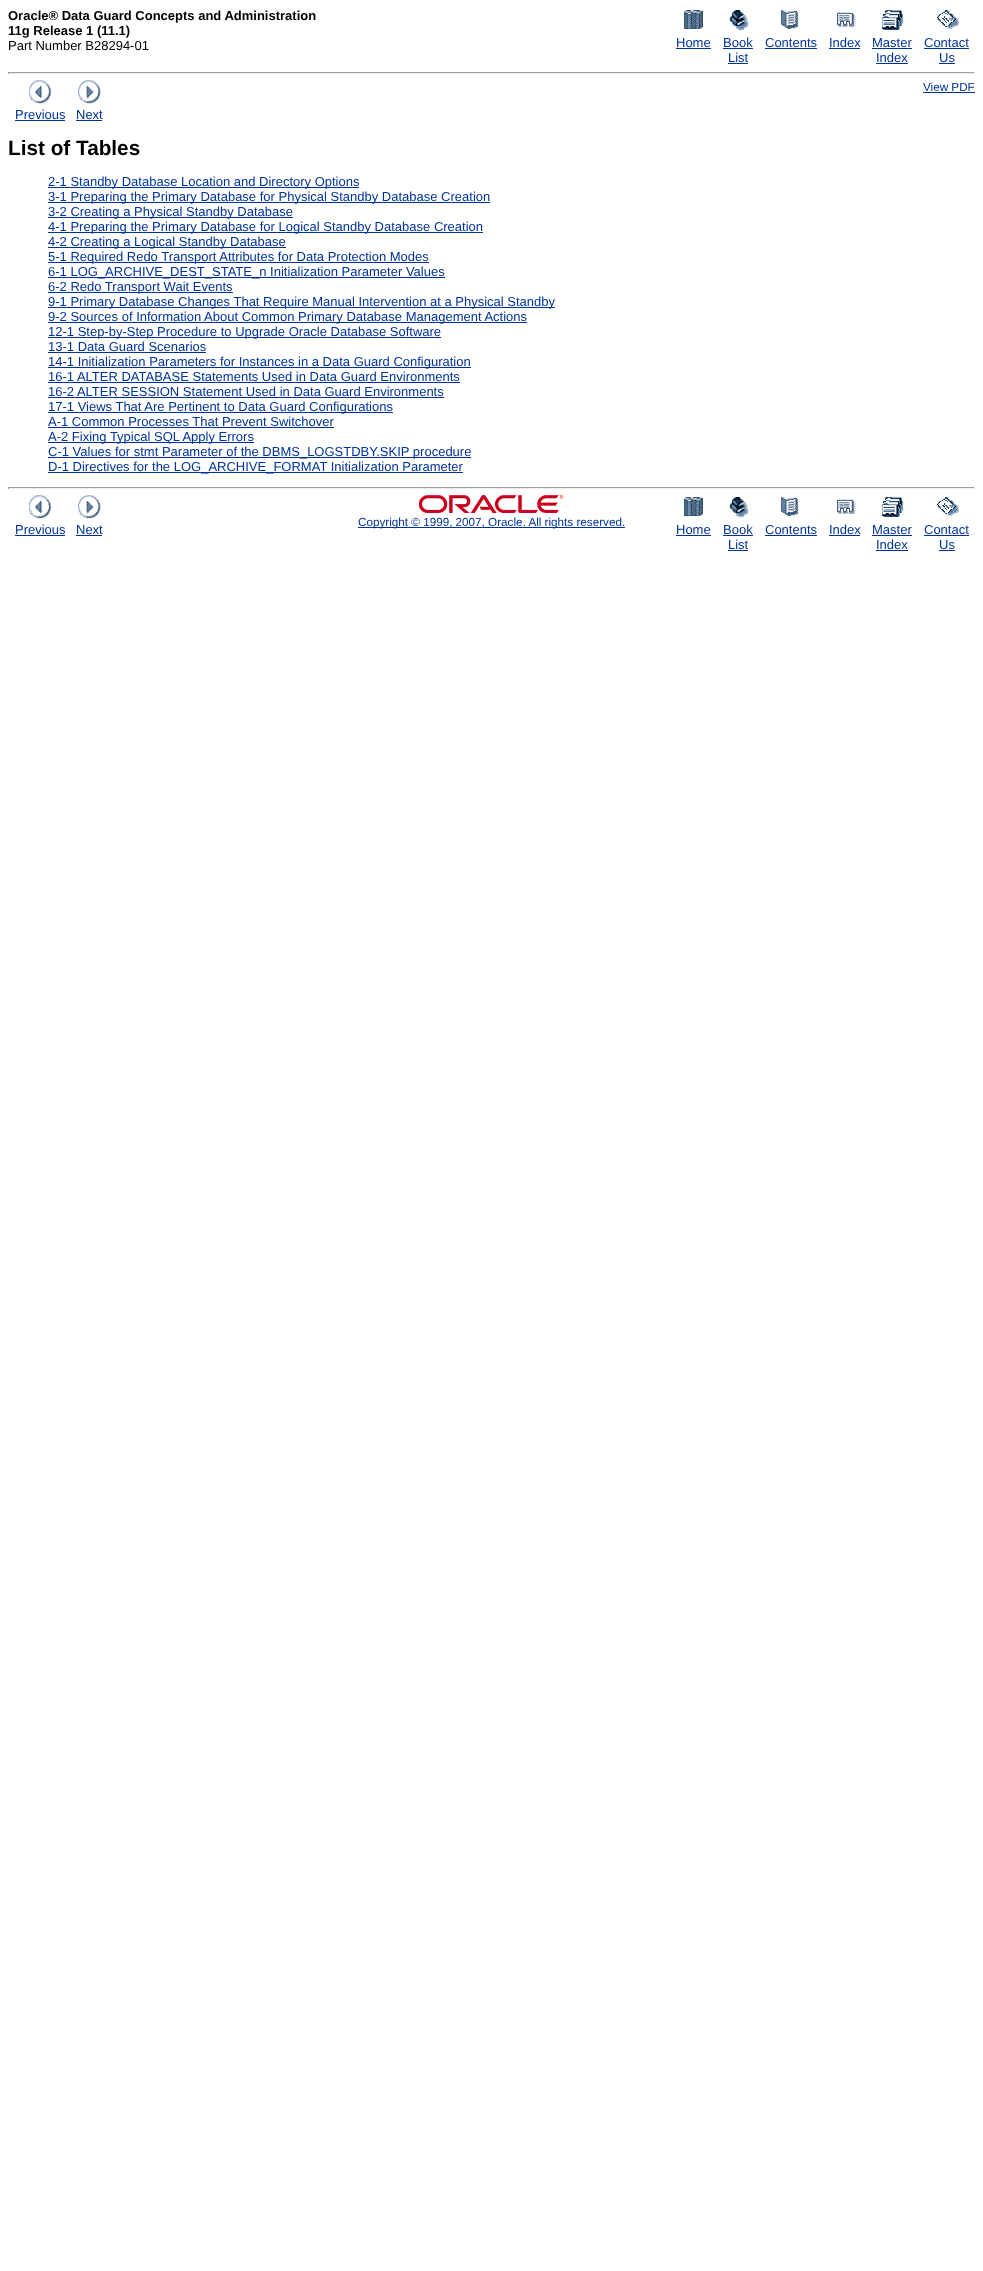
<?xml version="1.0" encoding="UTF-8"?>
<svg xmlns="http://www.w3.org/2000/svg" width="983" height="2271">
    <rect width="100%" height="100%" fill="#FFFFFF"/>
    <text font-family="Liberation Sans" font-size="13" font-weight="700" fill="#000000">
        <tspan x="8" y="20">Oracle® Data Guard Concepts and Administration</tspan>
        <tspan x="8" y="35">11g Release 1 (11.1)</tspan>
    </text>
    <text x="8" y="50" font-family="Liberation Sans" font-size="13" fill="#000000">Part Number B28294-01</text>
    <image x="684" y="10" width="19" height="19" href="img_01.png"/>
    <text x="676" y="47" font-family="Liberation Sans" font-size="13" fill="#003399">Home</text>
    <rect x="676" y="48" width="35" height="1" fill="#003399"/>
    <image x="729" y="10" width="20" height="21" href="img_02.png"/>
    <text x="723" y="47" font-family="Liberation Sans" font-size="13" fill="#003399">Book</text>
    <rect x="723" y="48" width="30" height="1" fill="#003399"/>
    <text x="728" y="62" font-family="Liberation Sans" font-size="13" fill="#003399">List</text>
    <rect x="728" y="63" width="20" height="1" fill="#003399"/>
    <image x="781" y="10" width="18" height="19" href="img_03.png"/>
    <text x="765" y="47" font-family="Liberation Sans" font-size="13" fill="#003399">Contents</text>
    <rect x="765" y="48" width="52" height="1" fill="#003399"/>
    <image x="837" y="12" width="19" height="15" href="img_04.png"/>
    <text x="829" y="47" font-family="Liberation Sans" font-size="13" fill="#003399">Index</text>
    <rect x="829" y="48" width="31" height="1" fill="#003399"/>
    <image x="882" y="10" width="22" height="20" href="img_05.png"/>
    <text x="872" y="47" font-family="Liberation Sans" font-size="13" fill="#003399">Master</text>
    <rect x="872" y="48" width="40" height="1" fill="#003399"/>
    <text x="876" y="62" font-family="Liberation Sans" font-size="13" fill="#003399">Index</text>
    <rect x="876" y="63" width="32" height="1" fill="#003399"/>
    <image x="937" y="10" width="22" height="22" href="img_06.png"/>
    <text x="924" y="47" font-family="Liberation Sans" font-size="13" fill="#003399">Contact</text>
    <rect x="924" y="48" width="45" height="1" fill="#003399"/>
    <text x="939" y="62" font-family="Liberation Sans" font-size="13" fill="#003399">Us</text>
    <rect x="939" y="63" width="16" height="1" fill="#003399"/>
    <rect x="8" y="72" width="967" height="1" fill="#9F9F9F"/>
    <rect x="974" y="72" width="1" height="2" fill="#EEEEEE"/>
    <rect x="8" y="73" width="967" height="1" fill="#EEEEEE"/>
    <rect x="8" y="72" width="1" height="2" fill="#9F9F9F"/>
    <text x="923" y="91" font-family="Liberation Sans" font-size="11.7" fill="#003399">View PDF</text>
    <rect x="923" y="92" width="52" height="1" fill="#003399"/>
    <image x="29" y="80" width="22" height="24" href="img_07.png"/>
    <text x="15" y="119" font-family="Liberation Sans" font-size="13" fill="#003399">Previous</text>
    <rect x="15" y="120" width="50" height="1" fill="#003399"/>
    <image x="78" y="80" width="23" height="24" href="img_08.png"/>
    <text x="76" y="119" font-family="Liberation Sans" font-size="13" fill="#003399">Next</text>
    <rect x="76" y="120" width="26" height="1" fill="#003399"/>
    <text x="8" y="155" font-family="Liberation Sans" font-size="20.75" font-weight="700" fill="#000000">List of Tables</text>
    <rect x="48" y="187" width="311" height="1" fill="#003399"/>
    <text x="48" y="186" font-family="Liberation Sans" font-size="13" fill="#003399">2-1 Standby Database Location and Directory Options</text>
    <rect x="48" y="202" width="442" height="1" fill="#003399"/>
    <text x="48" y="201" font-family="Liberation Sans" font-size="13" fill="#003399">3-1 Preparing the Primary Database for Physical Standby Database Creation</text>
    <rect x="48" y="217" width="245" height="1" fill="#003399"/>
    <text x="48" y="216" font-family="Liberation Sans" font-size="13" fill="#003399">3-2 Creating a Physical Standby Database</text>
    <rect x="48" y="232" width="435" height="1" fill="#003399"/>
    <text x="48" y="231" font-family="Liberation Sans" font-size="13" fill="#003399">4-1 Preparing the Primary Database for Logical Standby Database Creation</text>
    <rect x="48" y="247" width="238" height="1" fill="#003399"/>
    <text x="48" y="246" font-family="Liberation Sans" font-size="13" fill="#003399">4-2 Creating a Logical Standby Database</text>
    <rect x="48" y="262" width="381" height="1" fill="#003399"/>
    <text x="48" y="261" font-family="Liberation Sans" font-size="13" fill="#003399">5-1 Required Redo Transport Attributes for Data Protection Modes</text>
    <rect x="48" y="277" width="397" height="1" fill="#003399"/>
    <text x="48" y="276" font-family="Liberation Sans" font-size="13" fill="#003399">6-1 LOG_ARCHIVE_DEST_STATE_n Initialization Parameter Values</text>
    <rect x="48" y="292" width="185" height="1" fill="#003399"/>
    <text x="48" y="291" font-family="Liberation Sans" font-size="13" fill="#003399">6-2 Redo Transport Wait Events</text>
    <rect x="48" y="307" width="507" height="1" fill="#003399"/>
    <text x="48" y="306" font-family="Liberation Sans" font-size="13" fill="#003399">9-1 Primary Database Changes That Require Manual Intervention at a Physical Standby</text>
    <rect x="48" y="322" width="479" height="1" fill="#003399"/>
    <text x="48" y="321" font-family="Liberation Sans" font-size="13" fill="#003399">9-2 Sources of Information About Common Primary Database Management Actions</text>
    <rect x="48" y="337" width="393" height="1" fill="#003399"/>
    <text font-family="Liberation Sans" font-size="13" fill="#003399">
        <tspan x="48" y="336">12-1 Step-by-Step Procedure to Upgrade Oracle Database Software</tspan>
        <tspan x="48" y="351">13-1 Data Guard Scenarios</tspan>
    </text>
    <rect x="48" y="352" width="158" height="1" fill="#003399"/>
    <rect x="48" y="367" width="423" height="1" fill="#003399"/>
    <text font-family="Liberation Sans" font-size="13" fill="#003399">
        <tspan x="48" y="366">14-1 Initialization Parameters for Instances in a Data Guard Configuration</tspan>
        <tspan x="48" y="381">16-1 ALTER DATABASE Statements Used in Data Guard Environments</tspan>
    </text>
    <rect x="48" y="382" width="412" height="1" fill="#003399"/>
    <text x="48" y="396" font-family="Liberation Sans" font-size="13" fill="#003399">16-2 ALTER SESSION Statement Used in Data Guard Environments</text>
    <rect x="48" y="397" width="396" height="1" fill="#003399"/>
    <rect x="48" y="412" width="345" height="1" fill="#003399"/>
    <text font-family="Liberation Sans" font-size="13" fill="#003399">
        <tspan x="48" y="411">17-1 Views That Are Pertinent to Data Guard Configurations</tspan>
        <tspan x="48" y="426">A-1 Common Processes That Prevent Switchover</tspan>
    </text>
    <rect x="48" y="427" width="286" height="1" fill="#003399"/>
    <rect x="48" y="442" width="206" height="1" fill="#003399"/>
    <text x="48" y="441" font-family="Liberation Sans" font-size="13" fill="#003399">A-2 Fixing Typical SQL Apply Errors</text>
    <rect x="48" y="457" width="423" height="1" fill="#003399"/>
    <text x="48" y="456" font-family="Liberation Sans" font-size="13" fill="#003399">C-1 Values for stmt Parameter of the DBMS_LOGSTDBY.SKIP procedure</text>
    <rect x="48" y="472" width="415" height="1" fill="#003399"/>
    <text x="48" y="471" font-family="Liberation Sans" font-size="13" fill="#003399">D-1 Directives for the LOG_ARCHIVE_FORMAT Initialization Parameter</text>
    <rect x="8" y="487" width="967" height="1" fill="#9F9F9F"/>
    <rect x="974" y="487" width="1" height="2" fill="#EEEEEE"/>
    <rect x="8" y="488" width="967" height="1" fill="#EEEEEE"/>
    <rect x="8" y="487" width="1" height="2" fill="#9F9F9F"/>
    <image x="29" y="495" width="22" height="24" href="img_07.png"/>
    <text x="15" y="534" font-family="Liberation Sans" font-size="13" fill="#003399">Previous</text>
    <rect x="15" y="535" width="50" height="1" fill="#003399"/>
    <image x="78" y="495" width="23" height="24" href="img_08.png"/>
    <text x="76" y="534" font-family="Liberation Sans" font-size="13" fill="#003399">Next</text>
    <rect x="76" y="535" width="26" height="1" fill="#003399"/>
    <image x="419" y="495" width="144" height="18" href="img_09.png"/>
    <rect x="358" y="527" width="267" height="1" fill="#003399"/>
    <text x="358" y="526" font-family="Liberation Sans" font-size="11.7" fill="#003399">Copyright © 1999, 2007, Oracle. All rights reserved.</text>
    <image x="684" y="497" width="19" height="19" href="img_01.png"/>
    <text x="676" y="534" font-family="Liberation Sans" font-size="13" fill="#003399">Home</text>
    <rect x="676" y="535" width="35" height="1" fill="#003399"/>
    <image x="729" y="497" width="20" height="21" href="img_02.png"/>
    <text x="723" y="534" font-family="Liberation Sans" font-size="13" fill="#003399">Book</text>
    <rect x="723" y="535" width="30" height="1" fill="#003399"/>
    <text x="728" y="549" font-family="Liberation Sans" font-size="13" fill="#003399">List</text>
    <rect x="728" y="550" width="20" height="1" fill="#003399"/>
    <image x="781" y="497" width="18" height="19" href="img_03.png"/>
    <text x="765" y="534" font-family="Liberation Sans" font-size="13" fill="#003399">Contents</text>
    <rect x="765" y="535" width="52" height="1" fill="#003399"/>
    <image x="837" y="499" width="19" height="15" href="img_04.png"/>
    <text x="829" y="534" font-family="Liberation Sans" font-size="13" fill="#003399">Index</text>
    <rect x="829" y="535" width="31" height="1" fill="#003399"/>
    <image x="882" y="497" width="22" height="20" href="img_05.png"/>
    <text x="872" y="534" font-family="Liberation Sans" font-size="13" fill="#003399">Master</text>
    <rect x="872" y="535" width="40" height="1" fill="#003399"/>
    <text x="876" y="549" font-family="Liberation Sans" font-size="13" fill="#003399">Index</text>
    <rect x="876" y="550" width="32" height="1" fill="#003399"/>
    <image x="937" y="497" width="22" height="22" href="img_06.png"/>
    <text x="924" y="534" font-family="Liberation Sans" font-size="13" fill="#003399">Contact</text>
    <rect x="924" y="535" width="45" height="1" fill="#003399"/>
    <text x="939" y="549" font-family="Liberation Sans" font-size="13" fill="#003399">Us</text>
    <rect x="939" y="550" width="16" height="1" fill="#003399"/>
</svg>
